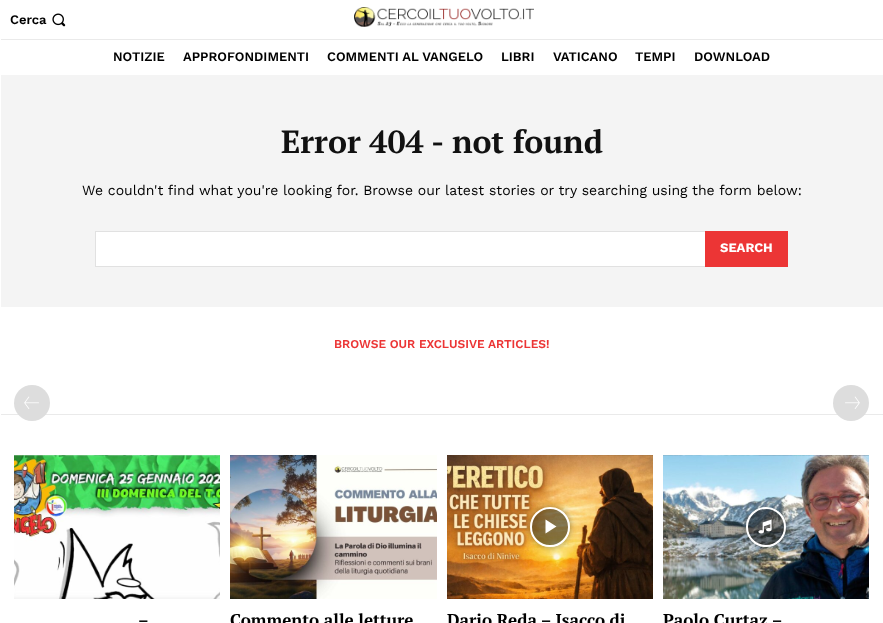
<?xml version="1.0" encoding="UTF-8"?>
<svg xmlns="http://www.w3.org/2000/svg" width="883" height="623">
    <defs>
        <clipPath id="clip1"><path d="M 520 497 H 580 V 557 H 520 Z M 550 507 C 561 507 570 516 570 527 C 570 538 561 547 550 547 C 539 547 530 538 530 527 C 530 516 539 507 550 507 Z" clip-rule="evenodd"/></clipPath>
        <filter id="blur1" x="-50%" y="-200%" width="200%" height="500%"><feGaussianBlur stdDeviation="3"/></filter>
        <clipPath id="clip2"><path d="M 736 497 H 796 V 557 H 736 Z M 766 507 C 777 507 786 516 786 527 C 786 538 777 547 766 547 C 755 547 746 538 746 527 C 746 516 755 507 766 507 Z" clip-rule="evenodd"/></clipPath>
    </defs>
    <rect width="100%" height="100%" fill="#FFFFFF"/>
    <text x="10" y="24" font-family="Work Sans" font-size="13" font-weight="600" fill="#000000">Cerca</text>
    <image x="52" y="13" width="14" height="14" href="img_01.png"/>
    <image x="354" y="7" width="180" height="20" href="img_02.png"/>
    <rect x="1" y="39" width="882" height="1" fill="#EAEAEA"/>
    <text x="113" y="61" font-family="Work Sans" font-size="13" font-weight="600" fill="#000000">NOTIZIE</text>
    <text x="183" y="61" font-family="Work Sans" font-size="13" font-weight="600" fill="#000000">APPROFONDIMENTI</text>
    <text x="327" y="61" font-family="Work Sans" font-size="13" font-weight="600" fill="#000000">COMMENTI AL VANGELO</text>
    <text x="501" y="61" font-family="Work Sans" font-size="13" font-weight="600" fill="#000000">LIBRI</text>
    <text x="553" y="61" font-family="Work Sans" font-size="13" font-weight="600" fill="#000000">VATICANO</text>
    <text x="635" y="61" font-family="Work Sans" font-size="13" font-weight="600" fill="#000000">TEMPI</text>
    <text x="694" y="61" font-family="Work Sans" font-size="13" font-weight="600" fill="#000000">DOWNLOAD</text>
    <rect x="1" y="75" width="882" height="232" fill="#F4F4F4"/>
    <text x="281" y="153" font-family="PT Serif" font-size="32" font-weight="700" fill="#111111">Error 404 - not found</text>
    <text x="82" y="195" font-family="Work Sans" font-size="14" fill="#000000">We couldn't find what you're looking for. Browse our latest stories or try searching using the form below:</text>
    <rect x="96" y="232" width="609" height="34" fill="#FFFFFF"/>
    <rect x="95.5" y="231.5" width="692" height="35" fill="none" stroke="#E1E1E1"/>
    <rect x="705" y="231" width="83" height="36" fill="#EC3535"/>
    <text x="720" y="252" font-family="Work Sans" font-size="13" font-weight="700" fill="#FFFFFF">SEARCH</text>
    <text x="334" y="348" font-family="Work Sans" font-size="12" font-weight="600" fill="#EC3535">BROWSE OUR EXCLUSIVE ARTICLES!</text>
    <rect x="1" y="414" width="882" height="1" fill="#EAEAEA"/>
    <circle cx="32" cy="403" r="18" fill="#DDDDDD"/>
    <image x="24" y="396" width="15" height="13" href="img_03.png"/>
    <circle cx="851" cy="403" r="18" fill="#DDDDDD"/>
    <image x="845" y="396" width="15" height="13" href="img_04.png"/>
    <image x="14" y="455" width="206" height="144" href="img_05.png"/>
    <text x="138" y="626" font-family="PT Serif" font-size="17" font-weight="700" fill="#000000">–</text>
    <image x="230" y="455" width="207" height="144" href="img_06.png"/>
    <text x="230" y="626" font-family="PT Serif" font-size="17" font-weight="700" fill="#000000">Commento alle letture</text>
    <image x="447" y="455" width="206" height="144" href="img_07.png"/>
    <g clip-path="url(#clip1)">
        <rect x="530" y="507" width="40" height="40" rx="20" fill="#000000" fill-opacity="0.4" filter="url(#blur1)"/>
    </g>
    <circle cx="550" cy="527" r="19" fill="#000000" fill-opacity="0.48" stroke="#FFFFFF" stroke-width="2"/>
    <path d="M 545.5 519.5 V 533.5 L 556.5 526.5 Z" fill="#FFFFFF"/>
    <text x="447" y="626" font-family="PT Serif" font-size="17" font-weight="700" fill="#000000">Dario Reda – Isacco di</text>
    <image x="663" y="455" width="206" height="144" href="img_08.png"/>
    <g clip-path="url(#clip2)">
        <rect x="746" y="507" width="40" height="40" rx="20" fill="#000000" fill-opacity="0.4" filter="url(#blur1)"/>
    </g>
    <circle cx="766" cy="527" r="19" fill="#000000" fill-opacity="0.48" stroke="#FFFFFF" stroke-width="2"/>
    <image x="758" y="519" width="14" height="15" href="img_09.png"/>
    <text x="663" y="626" font-family="PT Serif" font-size="17" font-weight="700" fill="#000000">Paolo Curtaz –</text>
</svg>
